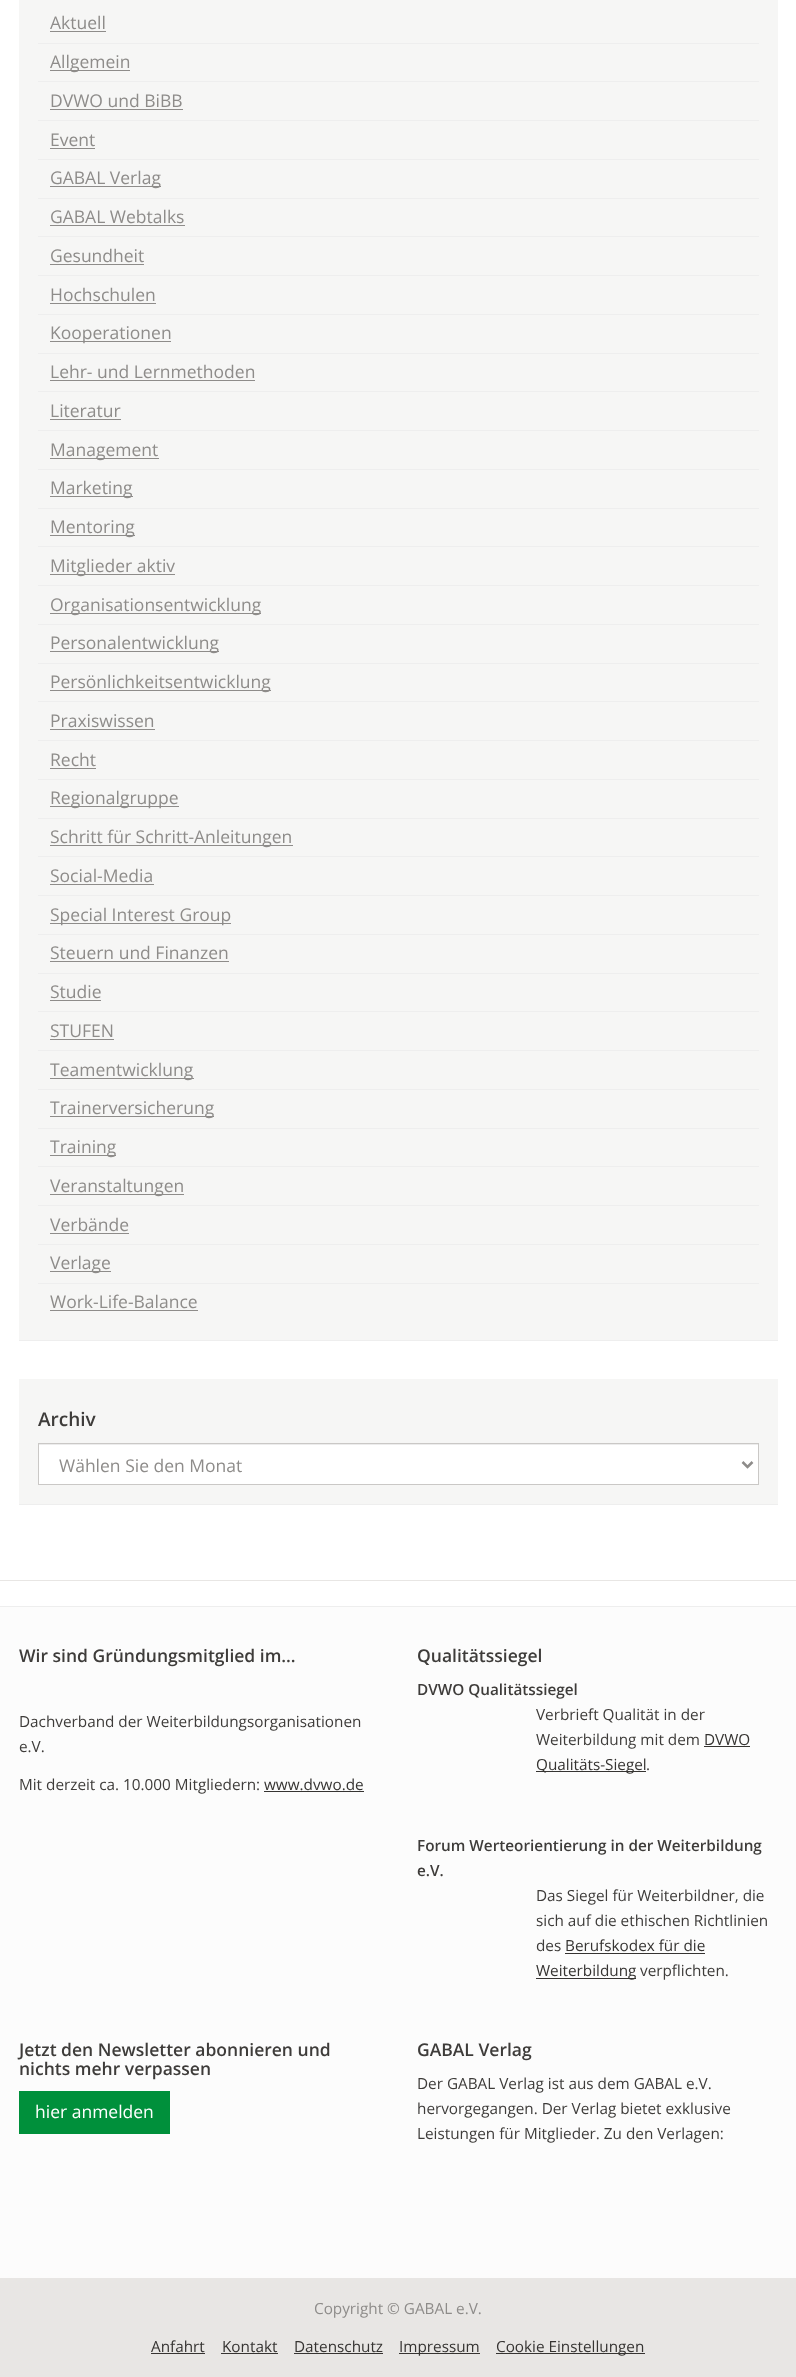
<?xml version="1.0" encoding="UTF-8"?>
<svg xmlns="http://www.w3.org/2000/svg" width="796" height="2377">
    <rect width="100%" height="100%" fill="#FFFFFF"/>
    <rect x="19" y="0" width="759" height="1340" fill="#F6F6F5"/>
    <rect x="19" y="1340" width="759" height="1" fill="#EEEEEE"/>
    <rect x="38" y="43" width="721" height="1" fill="#EEEEEE"/>
    <text x="50" y="29" font-family="Open Sans" font-size="17.5" fill="#8E8C8A">Aktuell</text>
    <rect x="50" y="31" width="56" height="1" fill="#8E8C8A"/>
    <rect x="38" y="81" width="721" height="1" fill="#EEEEEE"/>
    <rect x="50" y="70" width="80" height="1" fill="#8E8C8A"/>
    <text x="50" y="68" font-family="Open Sans" font-size="17.5" fill="#8E8C8A">Allgemein</text>
    <rect x="38" y="120" width="721" height="1" fill="#EEEEEE"/>
    <text x="50" y="107" font-family="Open Sans" font-size="17.5" fill="#8E8C8A">DVWO und BiBB</text>
    <rect x="50" y="109" width="133" height="1" fill="#8E8C8A"/>
    <rect x="38" y="159" width="721" height="1" fill="#EEEEEE"/>
    <text x="50" y="146" font-family="Open Sans" font-size="17.5" fill="#8E8C8A">Event</text>
    <rect x="50" y="148" width="45" height="1" fill="#8E8C8A"/>
    <rect x="38" y="198" width="721" height="1" fill="#EEEEEE"/>
    <rect x="50" y="186" width="111" height="1" fill="#8E8C8A"/>
    <text x="50" y="184" font-family="Open Sans" font-size="17.5" fill="#8E8C8A">GABAL Verlag</text>
    <rect x="38" y="236" width="721" height="1" fill="#EEEEEE"/>
    <text x="50" y="223" font-family="Open Sans" font-size="17.5" fill="#8E8C8A">GABAL Webtalks</text>
    <rect x="50" y="225" width="135" height="1" fill="#8E8C8A"/>
    <rect x="38" y="275" width="721" height="1" fill="#EEEEEE"/>
    <text x="50" y="262" font-family="Open Sans" font-size="17.5" fill="#8E8C8A">Gesundheit</text>
    <rect x="50" y="264" width="94" height="1" fill="#8E8C8A"/>
    <rect x="38" y="314" width="721" height="1" fill="#EEEEEE"/>
    <text x="50" y="301" font-family="Open Sans" font-size="17.5" fill="#8E8C8A">Hochschulen</text>
    <rect x="50" y="303" width="106" height="1" fill="#8E8C8A"/>
    <rect x="38" y="353" width="721" height="1" fill="#EEEEEE"/>
    <rect x="50" y="341" width="121" height="1" fill="#8E8C8A"/>
    <text x="50" y="339" font-family="Open Sans" font-size="17.5" fill="#8E8C8A">Kooperationen</text>
    <rect x="38" y="391" width="721" height="1" fill="#EEEEEE"/>
    <text x="50" y="378" font-family="Open Sans" font-size="17.5" fill="#8E8C8A">Lehr- und Lernmethoden</text>
    <rect x="50" y="380" width="205" height="1" fill="#8E8C8A"/>
    <rect x="38" y="430" width="721" height="1" fill="#EEEEEE"/>
    <text x="50" y="417" font-family="Open Sans" font-size="17.5" fill="#8E8C8A">Literatur</text>
    <rect x="50" y="419" width="71" height="1" fill="#8E8C8A"/>
    <rect x="38" y="469" width="721" height="1" fill="#EEEEEE"/>
    <rect x="50" y="458" width="109" height="1" fill="#8E8C8A"/>
    <text x="50" y="456" font-family="Open Sans" font-size="17.5" fill="#8E8C8A">Management</text>
    <rect x="38" y="508" width="721" height="1" fill="#EEEEEE"/>
    <rect x="50" y="496" width="83" height="1" fill="#8E8C8A"/>
    <text x="50" y="494" font-family="Open Sans" font-size="17.5" fill="#8E8C8A">Marketing</text>
    <rect x="38" y="546" width="721" height="1" fill="#EEEEEE"/>
    <rect x="50" y="535" width="85" height="1" fill="#8E8C8A"/>
    <text x="50" y="533" font-family="Open Sans" font-size="17.5" fill="#8E8C8A">Mentoring</text>
    <rect x="38" y="585" width="721" height="1" fill="#EEEEEE"/>
    <rect x="50" y="574" width="125" height="1" fill="#8E8C8A"/>
    <text x="50" y="572" font-family="Open Sans" font-size="17.5" fill="#8E8C8A">Mitglieder aktiv</text>
    <rect x="38" y="624" width="721" height="1" fill="#EEEEEE"/>
    <rect x="50" y="613" width="211" height="1" fill="#8E8C8A"/>
    <text x="50" y="611" font-family="Open Sans" font-size="17.5" fill="#8E8C8A">Organisationsentwicklung</text>
    <rect x="38" y="663" width="721" height="1" fill="#EEEEEE"/>
    <rect x="50" y="651" width="169" height="1" fill="#8E8C8A"/>
    <text x="50" y="649" font-family="Open Sans" font-size="17.5" fill="#8E8C8A">Personalentwicklung</text>
    <rect x="38" y="701" width="721" height="1" fill="#EEEEEE"/>
    <rect x="50" y="690" width="221" height="1" fill="#8E8C8A"/>
    <text x="50" y="688" font-family="Open Sans" font-size="17.5" fill="#8E8C8A">Persönlichkeitsentwicklung</text>
    <rect x="38" y="740" width="721" height="1" fill="#EEEEEE"/>
    <text x="50" y="727" font-family="Open Sans" font-size="17.5" fill="#8E8C8A">Praxiswissen</text>
    <rect x="50" y="729" width="105" height="1" fill="#8E8C8A"/>
    <rect x="38" y="779" width="721" height="1" fill="#EEEEEE"/>
    <text x="50" y="766" font-family="Open Sans" font-size="17.5" fill="#8E8C8A">Recht</text>
    <rect x="50" y="768" width="46" height="1" fill="#8E8C8A"/>
    <rect x="38" y="818" width="721" height="1" fill="#EEEEEE"/>
    <rect x="50" y="806" width="129" height="1" fill="#8E8C8A"/>
    <text x="50" y="804" font-family="Open Sans" font-size="17.5" fill="#8E8C8A">Regionalgruppe</text>
    <rect x="38" y="856" width="721" height="1" fill="#EEEEEE"/>
    <rect x="50" y="845" width="243" height="1" fill="#8E8C8A"/>
    <text x="50" y="843" font-family="Open Sans" font-size="17.5" fill="#8E8C8A">Schritt für Schritt-Anleitungen</text>
    <rect x="38" y="895" width="721" height="1" fill="#EEEEEE"/>
    <text x="50" y="882" font-family="Open Sans" font-size="17.5" fill="#8E8C8A">Social-Media</text>
    <rect x="50" y="884" width="104" height="1" fill="#8E8C8A"/>
    <rect x="38" y="934" width="721" height="1" fill="#EEEEEE"/>
    <rect x="50" y="923" width="181" height="1" fill="#8E8C8A"/>
    <text x="50" y="921" font-family="Open Sans" font-size="17.5" fill="#8E8C8A">Special Interest Group</text>
    <rect x="38" y="973" width="721" height="1" fill="#EEEEEE"/>
    <text x="50" y="959" font-family="Open Sans" font-size="17.5" fill="#8E8C8A">Steuern und Finanzen</text>
    <rect x="50" y="961" width="179" height="1" fill="#8E8C8A"/>
    <rect x="38" y="1011" width="721" height="1" fill="#EEEEEE"/>
    <text x="50" y="998" font-family="Open Sans" font-size="17.5" fill="#8E8C8A">Studie</text>
    <rect x="50" y="1000" width="51" height="1" fill="#8E8C8A"/>
    <rect x="38" y="1050" width="721" height="1" fill="#EEEEEE"/>
    <text x="50" y="1037" font-family="Open Sans" font-size="17.5" fill="#8E8C8A">STUFEN</text>
    <rect x="50" y="1039" width="64" height="1" fill="#8E8C8A"/>
    <rect x="38" y="1089" width="721" height="1" fill="#EEEEEE"/>
    <rect x="50" y="1078" width="144" height="1" fill="#8E8C8A"/>
    <text x="50" y="1076" font-family="Open Sans" font-size="17.5" fill="#8E8C8A">Teamentwicklung</text>
    <rect x="38" y="1128" width="721" height="1" fill="#EEEEEE"/>
    <rect x="50" y="1116" width="164" height="1" fill="#8E8C8A"/>
    <text x="50" y="1114" font-family="Open Sans" font-size="17.5" fill="#8E8C8A">Trainerversicherung</text>
    <rect x="38" y="1166" width="721" height="1" fill="#EEEEEE"/>
    <rect x="50" y="1155" width="66" height="1" fill="#8E8C8A"/>
    <text x="50" y="1153" font-family="Open Sans" font-size="17.5" fill="#8E8C8A">Training</text>
    <rect x="38" y="1205" width="721" height="1" fill="#EEEEEE"/>
    <rect x="50" y="1194" width="134" height="1" fill="#8E8C8A"/>
    <text x="50" y="1192" font-family="Open Sans" font-size="17.5" fill="#8E8C8A">Veranstaltungen</text>
    <rect x="38" y="1244" width="721" height="1" fill="#EEEEEE"/>
    <text x="50" y="1231" font-family="Open Sans" font-size="17.5" fill="#8E8C8A">Verbände</text>
    <rect x="50" y="1233" width="79" height="1" fill="#8E8C8A"/>
    <rect x="38" y="1283" width="721" height="1" fill="#EEEEEE"/>
    <rect x="50" y="1271" width="61" height="1" fill="#8E8C8A"/>
    <text x="50" y="1269" font-family="Open Sans" font-size="17.5" fill="#8E8C8A">Verlage</text>
    <text x="50" y="1308" font-family="Open Sans" font-size="17.5" fill="#8E8C8A">Work-Life-Balance</text>
    <rect x="50" y="1310" width="148" height="1" fill="#8E8C8A"/>
    <rect x="19" y="1379" width="759" height="125" fill="#F6F6F5"/>
    <rect x="19" y="1504" width="759" height="1" fill="#EEEEEE"/>
    <text x="38" y="1426" font-family="Open Sans" font-size="19" font-weight="600" fill="#3E3C3A">Archiv</text>
    <rect x="39" y="1445" width="719" height="39" fill="#FFFFFF"/>
    <rect x="39" y="1444" width="719" height="1" fill="#ECECEC"/>
    <rect x="38.5" y="1443.5" width="720" height="41" fill="none" stroke="#CAC8C6"/>
    <path d="M 742.5 1462 L 747.5 1467 L 752.5 1462" fill="none" stroke="#8E8C8A" stroke-width="2.5"/>
    <text x="59" y="1472" font-family="Open Sans" font-size="17.5" fill="#8E8C8A">Wählen Sie den Monat</text>
    <rect x="0" y="1580" width="796" height="1" fill="#E8E6E4"/>
    <rect x="0" y="1607" width="796" height="671" fill="#FCFCFC"/>
    <rect x="0" y="1606" width="796" height="1" fill="#EEEEEE"/>
    <text x="19" y="1662" font-family="Open Sans" font-size="17.5" font-weight="600" fill="#3E3C3A">Wir sind Gründungsmitglied im…</text>
    <text font-family="Open Sans" font-size="15.3" fill="#3E3C3A">
        <tspan x="19" y="1727">Dachverband der Weiterbildungsorganisationen</tspan>
        <tspan x="19" y="1752">e.V.</tspan>
    </text>
    <text x="19" y="1790" font-family="Open Sans" font-size="15.3" fill="#3E3C3A">Mit derzeit ca. 10.000 Mitgliedern:</text>
    <text x="264" y="1790" font-family="Open Sans" font-size="15.3" fill="#363432">www.dvwo.de</text>
    <rect x="264" y="1791" width="100" height="1" fill="#363432"/>
    <text x="417" y="1662" font-family="Open Sans" font-size="17.5" font-weight="600" fill="#3E3C3A">Qualitätssiegel</text>
    <text x="417" y="1695" font-family="Open Sans" font-size="15.3" font-weight="600" fill="#3E3C3A">DVWO Qualitätssiegel</text>
    <text font-family="Open Sans" font-size="15.3" fill="#3E3C3A">
        <tspan x="536" y="1720">Verbrieft Qualität in der</tspan>
        <tspan x="536" y="1745">Weiterbildung mit dem</tspan>
    </text>
    <text x="704" y="1745" font-family="Open Sans" font-size="15.3" fill="#363432">DVWO</text>
    <rect x="704" y="1746" width="46" height="1" fill="#363432"/>
    <rect x="536" y="1771" width="110" height="1" fill="#363432"/>
    <text x="536" y="1770" font-family="Open Sans" font-size="15.3" fill="#363432">Qualitäts-Siegel</text>
    <text x="646" y="1770" font-family="Open Sans" font-size="15.3" fill="#3E3C3A">.</text>
    <text font-family="Open Sans" font-size="15.3" font-weight="600" fill="#3E3C3A">
        <tspan x="417" y="1851">Forum Werteorientierung in der Weiterbildung</tspan>
        <tspan x="417" y="1876">e.V.</tspan>
    </text>
    <text font-family="Open Sans" font-size="15.3" fill="#3E3C3A">
        <tspan x="536" y="1901">Das Siegel für Weiterbildner, die</tspan>
        <tspan x="536" y="1926">sich auf die ethischen Richtlinien</tspan>
        <tspan x="536" y="1951">des</tspan>
    </text>
    <text x="565" y="1951" font-family="Open Sans" font-size="15.3" fill="#363432">Berufskodex für die</text>
    <rect x="565" y="1953" width="140" height="1" fill="#363432"/>
    <rect x="536" y="1978" width="100" height="1" fill="#363432"/>
    <text x="536" y="1976" font-family="Open Sans" font-size="15.3" fill="#363432">Weiterbildung</text>
    <text x="640" y="1976" font-family="Open Sans" font-size="15.3" fill="#3E3C3A">verpflichten.</text>
    <text font-family="Open Sans" font-size="17.5" font-weight="600" fill="#3E3C3A">
        <tspan x="19" y="2056">Jetzt den Newsletter abonnieren und</tspan>
        <tspan x="19" y="2075">nichts mehr verpassen</tspan>
    </text>
    <rect x="19" y="2091" width="151" height="43" fill="#00903B"/>
    <text x="35" y="2118" font-family="Open Sans" font-size="17.5" fill="#FFFFFF">hier anmelden</text>
    <text x="417" y="2056" font-family="Open Sans" font-size="17.5" font-weight="600" fill="#3E3C3A">GABAL Verlag</text>
    <text font-family="Open Sans" font-size="15.3" fill="#3E3C3A">
        <tspan x="417" y="2089">Der GABAL Verlag ist aus dem GABAL e.V.</tspan>
        <tspan x="417" y="2114">hervorgegangen. Der Verlag bietet exklusive</tspan>
        <tspan x="417" y="2139">Leistungen für Mitglieder. Zu den Verlagen:</tspan>
    </text>
    <rect x="0" y="2278" width="796" height="99" fill="#E8E6E4"/>
    <text x="314" y="2314" font-family="Open Sans" font-size="15.3" fill="#8E8C8A">Copyright © GABAL e.V.</text>
    <text x="151" y="2352" font-family="Open Sans" font-size="15.3" fill="#363432">Anfahrt</text>
    <rect x="151" y="2353" width="54" height="1" fill="#363432"/>
    <text x="222" y="2352" font-family="Open Sans" font-size="15.3" fill="#363432">Kontakt</text>
    <rect x="221" y="2353" width="57" height="1" fill="#363432"/>
    <text x="294" y="2352" font-family="Open Sans" font-size="15.3" fill="#363432">Datenschutz</text>
    <rect x="294" y="2353" width="89" height="1" fill="#363432"/>
    <rect x="399" y="2353" width="81" height="1" fill="#363432"/>
    <text x="399" y="2352" font-family="Open Sans" font-size="15.3" fill="#363432">Impressum</text>
    <rect x="496" y="2353" width="149" height="1" fill="#363432"/>
    <text x="496" y="2352" font-family="Open Sans" font-size="15.3" fill="#363432">Cookie Einstellungen</text>
</svg>
